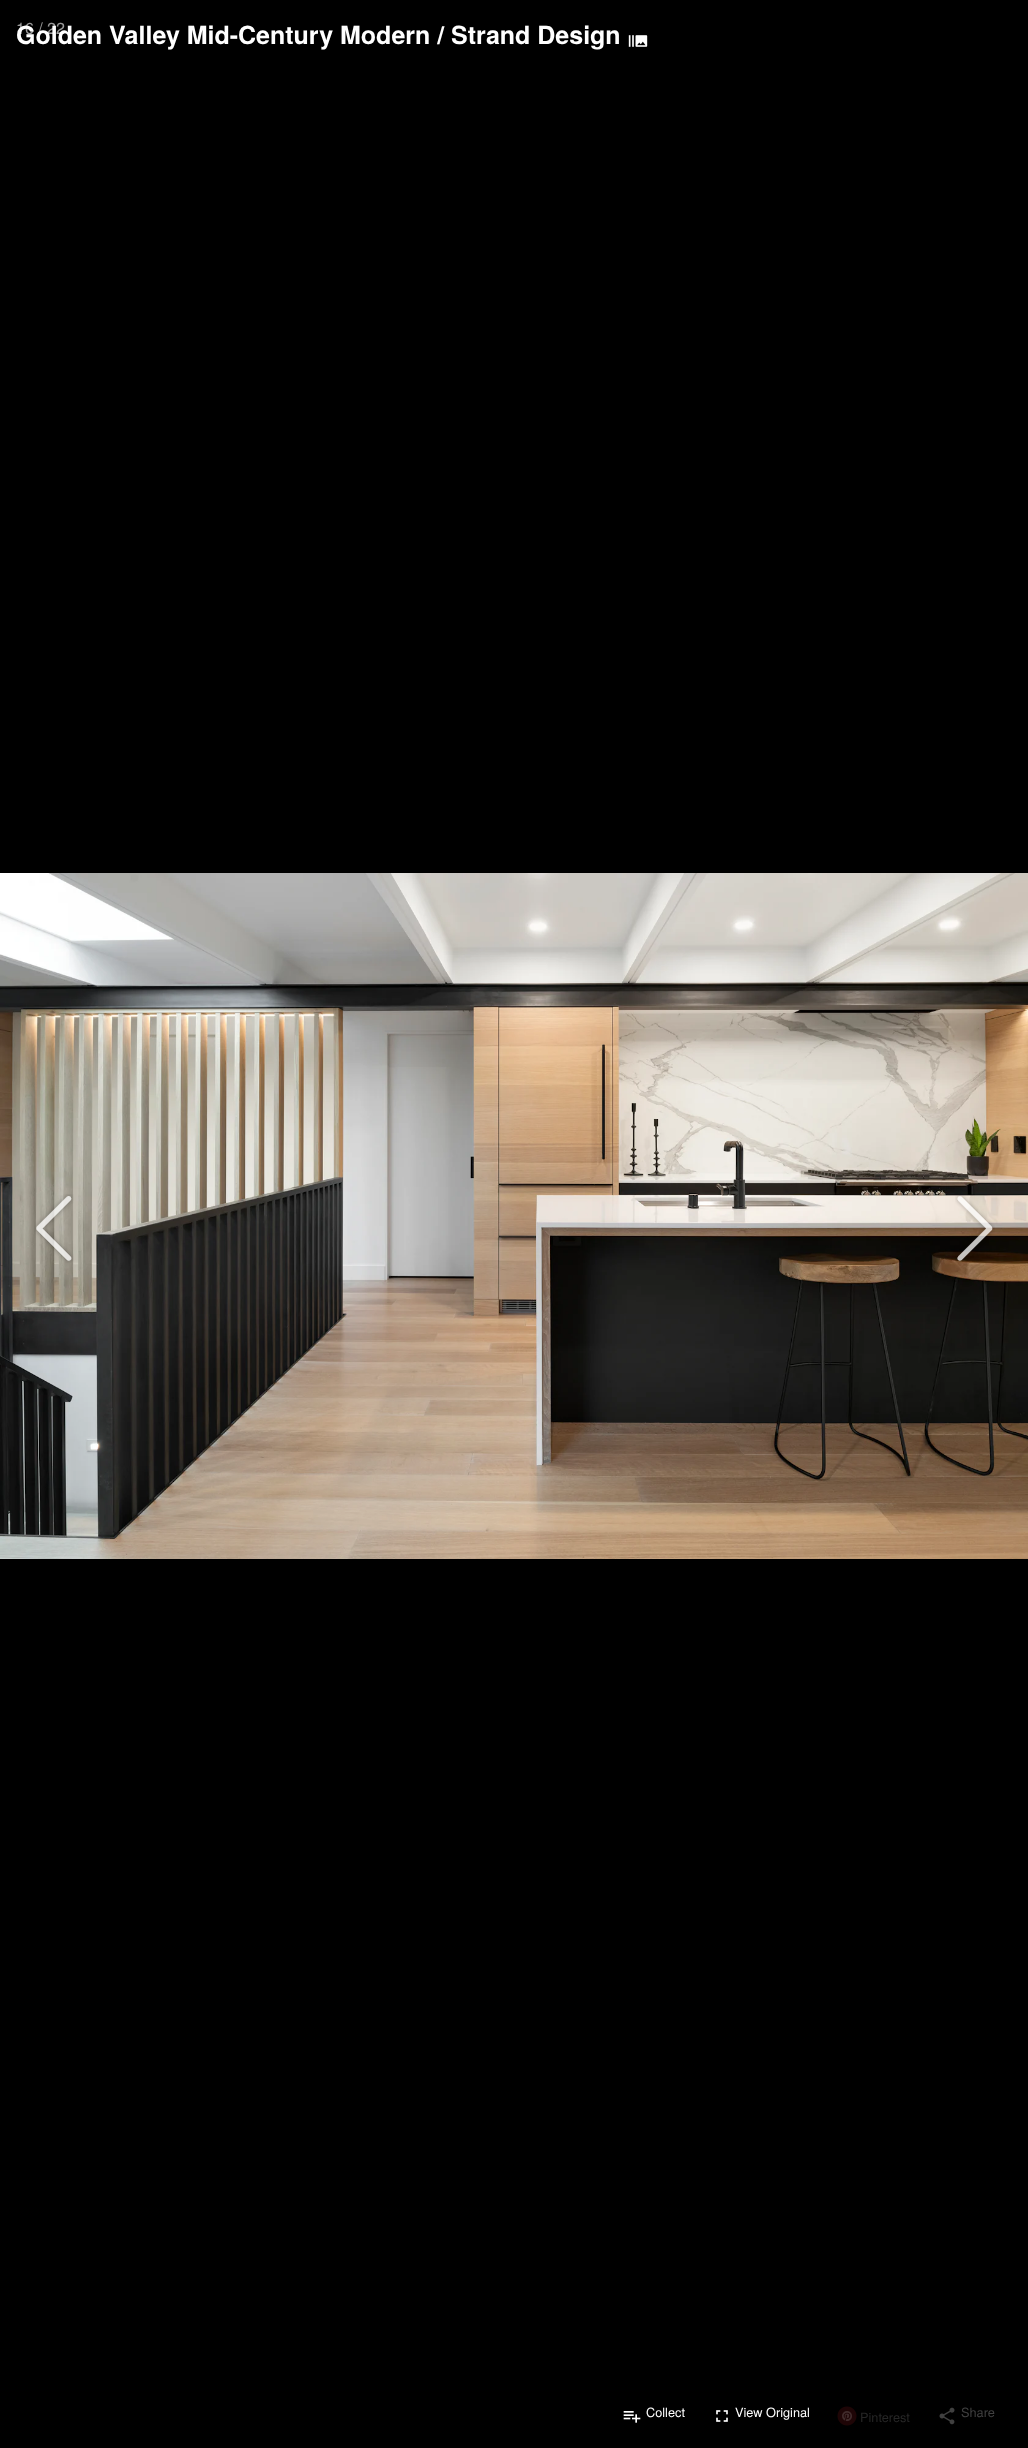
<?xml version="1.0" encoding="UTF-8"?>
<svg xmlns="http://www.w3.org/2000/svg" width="1028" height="2448">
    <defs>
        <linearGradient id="g1" gradientUnits="userSpaceOnUse" x1="514" y1="0" x2="514" y2="125"><stop offset="0" stop-color="#000000" stop-opacity="0.5"/><stop offset="1" stop-color="#000000" stop-opacity="0"/></linearGradient>
    </defs>
    <rect width="100%" height="100%" fill="#000000"/>
    <text x="16" y="34" font-family="TeX Gyre Heros" font-size="16" fill="#FFFFFF">16 / 22</text>
    <rect x="17" y="22" width="48" height="13" fill="url(#g1)"/>
    <text x="16" y="44" font-family="TeX Gyre Heros" font-size="25" font-weight="700" fill="#FFFFFF">Golden Valley Mid-Century Modern / Strand Design</text>
    <image x="628" y="35" width="20" height="12" href="img_01.png"/>
    <image x="0" y="873" width="1028" height="686" href="img_02.png"/>
    <image x="34" y="1194" width="40" height="69" href="img_03.png"/>
    <image x="955" y="1195" width="40" height="68" href="img_04.png"/>
    <image x="623" y="2411" width="18" height="12" href="img_05.png"/>
    <text x="646" y="2417" font-family="TeX Gyre Heros" font-size="12.75" fill="#FFFFFF">Collect</text>
    <image x="716" y="2410" width="12" height="12" href="img_06.png"/>
    <text x="735" y="2417" font-family="TeX Gyre Heros" font-size="12.75" fill="#FFFFFF">View Original</text>
    <image x="837" y="2406" width="20" height="20" href="img_07.png"/>
    <text x="860" y="2422" font-family="TeX Gyre Heros" font-size="12.75" fill="#262626">Pinterest</text>
    <image x="939" y="2407" width="16" height="18" href="img_08.png"/>
    <text x="961" y="2417" font-family="TeX Gyre Heros" font-size="12.75" fill="#404040">Share</text>
</svg>
